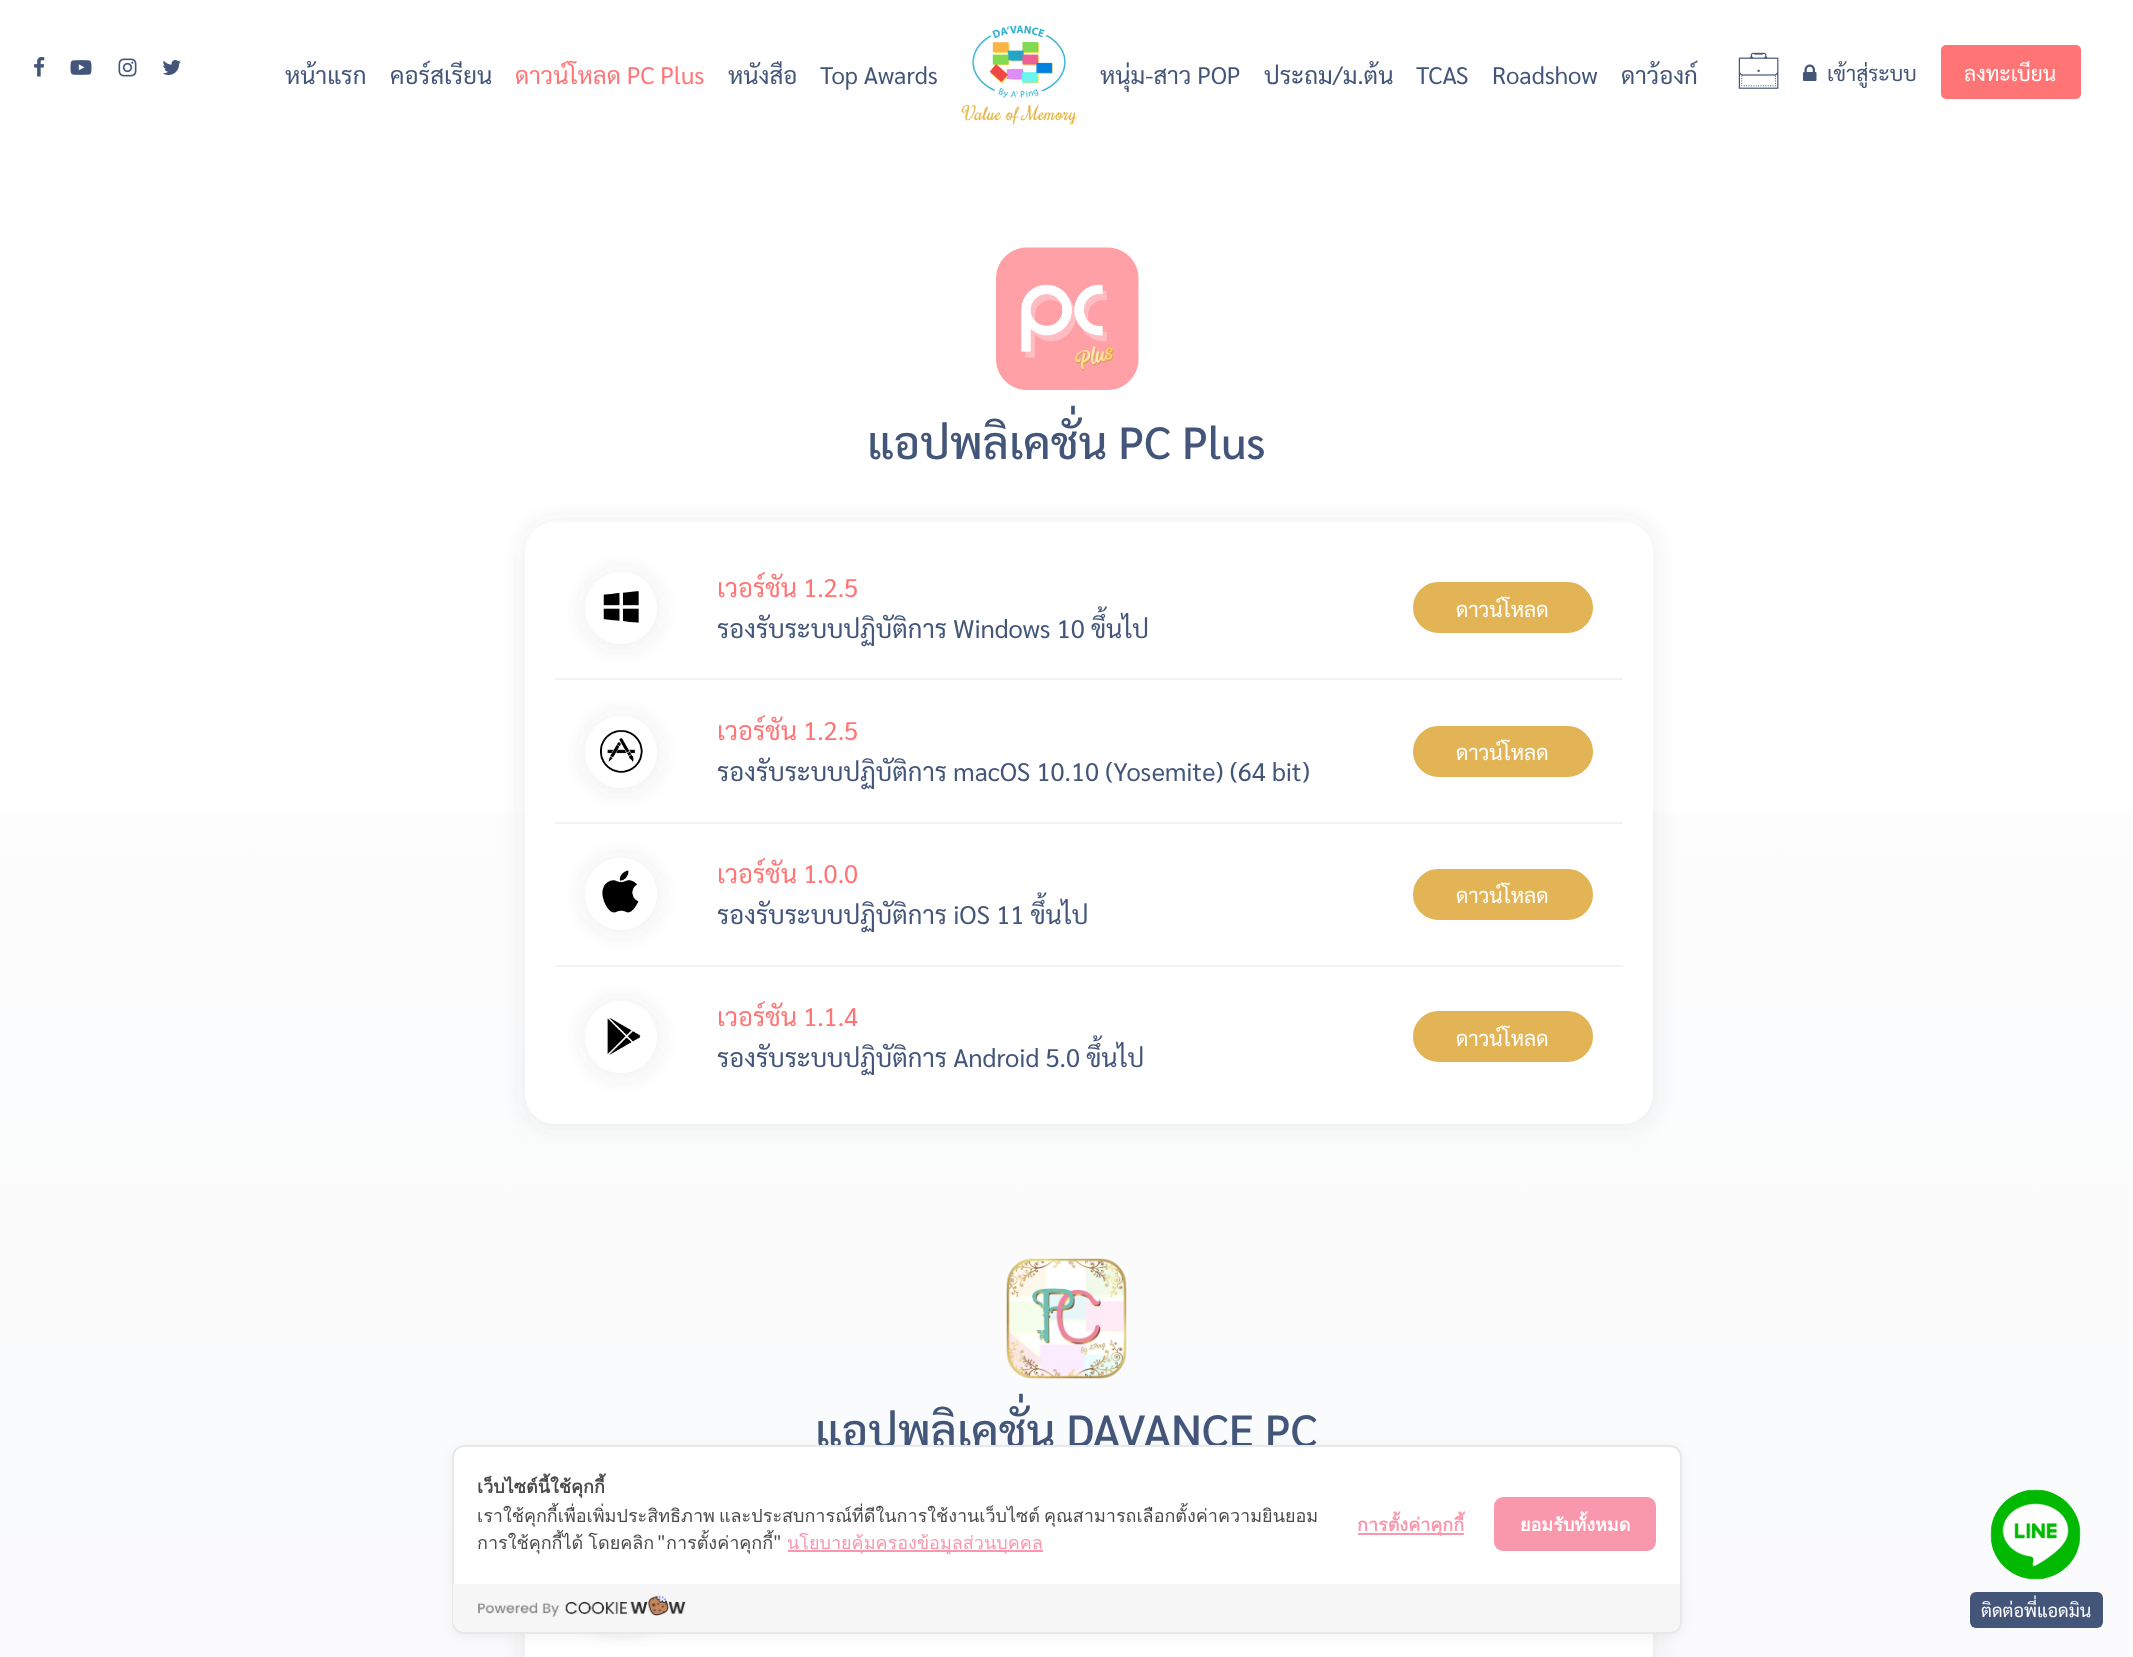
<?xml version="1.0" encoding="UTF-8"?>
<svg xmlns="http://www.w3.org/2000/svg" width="2133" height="1657">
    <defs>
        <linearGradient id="g1" gradientUnits="userSpaceOnUse" x1="1066" y1="0" x2="1067" y2="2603"><stop offset="0" stop-color="#FFFFFF"/><stop offset="1" stop-color="#F7F8FA"/></linearGradient>
        <filter id="blur1" x="-50%" y="-200%" width="200%" height="500%"><feGaussianBlur stdDeviation="11"/></filter>
        <clipPath id="clip1"><path d="M 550 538 H 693 V 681 H 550 Z M 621 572 C 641 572 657 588 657 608 C 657 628 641 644 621 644 C 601 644 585 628 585 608 C 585 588 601 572 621 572 Z" clip-rule="evenodd"/></clipPath>
        <clipPath id="clip2"><path d="M 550 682 H 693 V 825 H 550 Z M 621 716 C 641 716 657 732 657 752 C 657 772 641 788 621 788 C 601 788 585 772 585 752 C 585 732 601 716 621 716 Z" clip-rule="evenodd"/></clipPath>
        <clipPath id="clip3"><path d="M 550 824 H 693 V 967 H 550 Z M 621 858 C 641 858 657 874 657 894 C 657 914 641 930 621 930 C 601 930 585 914 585 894 C 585 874 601 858 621 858 Z" clip-rule="evenodd"/></clipPath>
        <clipPath id="clip4"><path d="M 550 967 H 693 V 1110 H 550 Z M 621 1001 C 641 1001 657 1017 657 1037 C 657 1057 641 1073 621 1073 C 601 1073 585 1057 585 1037 C 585 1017 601 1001 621 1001 Z" clip-rule="evenodd"/></clipPath>
        <filter id="blur2" x="-50%" y="-200%" width="200%" height="500%"><feGaussianBlur stdDeviation="6"/></filter>
    </defs>
    <rect width="100%" height="100%" fill="#FFFFFF"/>
    <rect x="0" y="813" width="2133" height="844" fill="url(#g1)"/>
    <text x="285" y="84" font-family="Sarabun" font-size="24" fill="#43567A">หน้าแรก</text>
    <text x="390" y="84" font-family="Sarabun" font-size="24" fill="#43567A">คอร์สเรียน</text>
    <text x="515" y="84" font-family="Sarabun" font-size="24" fill="#FF7474">ดาวน์โหลด PC Plus</text>
    <text x="728" y="84" font-family="Sarabun" font-size="24" fill="#43567A">หนังสือ</text>
    <text x="820" y="84" font-family="Sarabun" font-size="24" fill="#43567A">Top Awards</text>
    <image x="961" y="25" width="116" height="100" href="img_01.png"/>
    <text x="1100" y="84" font-family="Sarabun" font-size="24" fill="#43567A">หนุ่ม-สาว POP</text>
    <text x="1264" y="84" font-family="Sarabun" font-size="24" fill="#43567A">ประถม/ม.ต้น</text>
    <text x="1416" y="84" font-family="Sarabun" font-size="24" fill="#43567A">TCAS</text>
    <text x="1492" y="84" font-family="Sarabun" font-size="24" fill="#43567A">Roadshow</text>
    <text x="1621" y="84" font-family="Sarabun" font-size="24" fill="#43567A">ดาว้องก์</text>
    <image x="34" y="57" width="11" height="20" href="img_02.png"/>
    <image x="70" y="60" width="22" height="15" href="img_03.png"/>
    <image x="118" y="58" width="19" height="19" href="img_04.png"/>
    <image x="162" y="60" width="19" height="15" href="img_05.png"/>
    <image x="1738" y="52" width="41" height="37" href="img_06.png"/>
    <image x="1803" y="64" width="14" height="17" href="img_07.png"/>
    <text x="1827" y="81" font-family="Sarabun" font-size="21" fill="#43567A">เข้าสู่ระบบ</text>
    <rect x="1942" y="46" width="138" height="52" rx="4" fill="#FF7474" stroke="#FF7474" stroke-width="2"/>
    <text x="1964" y="81" font-family="Sarabun" font-size="21" fill="#FFFFFF">ลงทะเบียน</text>
    <image x="996" y="247" width="143" height="143" href="img_08.png"/>
    <text x="867" y="459" font-family="Sarabun" font-size="45" font-weight="500" fill="#43567A">แอปพลิเคชั่น PC Plus</text>
    <rect x="524" y="522" width="1131" height="605" rx="32" fill="#45414E" fill-opacity="0.1" filter="url(#blur1)"/>
    <rect x="525" y="522" width="1128" height="602" rx="30" fill="#FFFFFF"/>
    <rect x="555" y="678" width="1068" height="2" fill="#F3F3F3"/>
    <g clip-path="url(#clip1)">
        <rect x="584" y="572" width="75" height="75" rx="37.5" fill="#45414E" fill-opacity="0.1" filter="url(#blur1)"/>
    </g>
    <image x="603" y="591" width="36" height="32" href="img_09.png"/>
    <text x="717" y="597" font-family="Sarabun" font-size="25.5" fill="#FF7474">เวอร์ชัน 1.2.5</text>
    <text x="717" y="638" font-family="Sarabun" font-size="25.5" fill="#43567A">รองรับระบบปฏิบัติการ Windows 10 ขึ้นไป</text>
    <rect x="1414" y="583" width="178" height="49" rx="24.5" fill="#E2B456" stroke="#E2B456" stroke-width="2"/>
    <text x="1456" y="617" font-family="Sarabun" font-size="21" fill="#FFFFFF">ดาวน์โหลด</text>
    <rect x="555" y="822" width="1068" height="2" fill="#F3F3F3"/>
    <g clip-path="url(#clip2)">
        <rect x="584" y="716" width="75" height="75" rx="37.5" fill="#45414E" fill-opacity="0.1" filter="url(#blur1)"/>
    </g>
    <image x="600" y="730" width="43" height="43" href="img_10.png"/>
    <text x="717" y="740" font-family="Sarabun" font-size="25.5" fill="#FF7474">เวอร์ชัน 1.2.5</text>
    <text x="717" y="781" font-family="Sarabun" font-size="25.5" fill="#43567A">รองรับระบบปฏิบัติการ macOS 10.10 (Yosemite) (64 bit)</text>
    <rect x="1414" y="727" width="178" height="49" rx="24.5" fill="#E2B456" stroke="#E2B456" stroke-width="2"/>
    <text x="1456" y="760" font-family="Sarabun" font-size="21" fill="#FFFFFF">ดาวน์โหลด</text>
    <rect x="555" y="965" width="1068" height="2" fill="#F3F3F3"/>
    <g clip-path="url(#clip3)">
        <rect x="584" y="858" width="75" height="75" rx="37.5" fill="#45414E" fill-opacity="0.1" filter="url(#blur1)"/>
    </g>
    <image x="602" y="870" width="37" height="43" href="img_11.png"/>
    <text x="717" y="883" font-family="Sarabun" font-size="25.5" fill="#FF7474">เวอร์ชัน 1.0.0</text>
    <text x="717" y="924" font-family="Sarabun" font-size="25.5" fill="#43567A">รองรับระบบปฏิบัติการ iOS 11 ขึ้นไป</text>
    <rect x="1414" y="870" width="178" height="49" rx="24.5" fill="#E2B456" stroke="#E2B456" stroke-width="2"/>
    <text x="1456" y="903" font-family="Sarabun" font-size="21" fill="#FFFFFF">ดาวน์โหลด</text>
    <g clip-path="url(#clip4)">
        <rect x="584" y="1001" width="75" height="75" rx="37.5" fill="#45414E" fill-opacity="0.1" filter="url(#blur1)"/>
    </g>
    <image x="607" y="1018" width="34" height="37" href="img_12.png"/>
    <text x="717" y="1026" font-family="Sarabun" font-size="25.5" fill="#FF7474">เวอร์ชัน 1.1.4</text>
    <text x="717" y="1067" font-family="Sarabun" font-size="25.5" fill="#43567A">รองรับระบบปฏิบัติการ Android 5.0 ขึ้นไป</text>
    <rect x="1414" y="1012" width="178" height="49" rx="24.5" fill="#E2B456" stroke="#E2B456" stroke-width="2"/>
    <text x="1456" y="1046" font-family="Sarabun" font-size="21" fill="#FFFFFF">ดาวน์โหลด</text>
    <image x="1006" y="1258" width="121" height="121" href="img_13.png"/>
    <text x="815" y="1447" font-family="Sarabun" font-size="45" font-weight="500" fill="#43567A">แอปพลิเคชั่น DAVANCE PC</text>
    <rect x="524" y="1511" width="1131" height="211" rx="32" fill="#45414E" fill-opacity="0.1" filter="url(#blur1)"/>
    <rect x="525" y="1634" width="1128" height="23" fill="#FFFFFF"/>
    <rect x="584" y="1556" width="75" height="75" rx="37.5" fill="#45414E" fill-opacity="0.1" filter="url(#blur1)"/>
    <rect x="452" y="1448" width="1230" height="189" rx="12" fill="#000000" fill-opacity="0.05" filter="url(#blur2)"/>
    <rect x="453" y="1446" width="1228" height="187" rx="11" fill="#FFFFFF" stroke="#E8E8E8" stroke-width="2"/>
    <text x="477" y="1493" font-family="Loma" font-size="18" font-weight="700" fill="#4A4A4A">เว็บไซต์นี้ใช้คุกกี้</text>
    <text font-family="Loma" font-size="18" fill="#4A4A4A">
        <tspan x="477" y="1522" word-spacing="-2">เราใช้คุกกี้เพื่อเพิ่มประสิทธิภาพ และประสบการณ์ที่ดีในการใช้งานเว็บไซต์ คุณสามารถเลือกตั้งค่าความยินยอม</tspan>
        <tspan x="477" y="1549" word-spacing="-1">การใช้คุกกี้ได้ โดยคลิก</tspan>
    </text>
    <text x="657" y="1549" font-family="Noto Sans JP" font-size="18" fill="#4A4A4A">"</text>
    <text x="666" y="1549" font-family="Loma" font-size="18" fill="#4A4A4A">การตั้งค่าคุกกี้</text>
    <text x="773" y="1549" font-family="Noto Sans JP" font-size="18" fill="#4A4A4A">"</text>
    <rect x="788" y="1550" width="255" height="2" fill="#F998AC"/>
    <text x="787" y="1549" font-family="Loma" font-size="18" fill="#F997AC">นโยบายคุ้มครองข้อมูลส่วนบุคคล</text>
    <rect x="1358" y="1533" width="106" height="2" fill="#F998AC"/>
    <text x="1357" y="1531" font-family="Loma" font-size="18" font-weight="700" fill="#F997AC">การตั้งค่าคุกกี้</text>
    <rect x="1494" y="1497" width="162" height="54" rx="9" fill="#F998AC"/>
    <text x="1520" y="1531" font-family="Loma" font-size="18" font-weight="700" fill="#FFFFFF">ยอมรับทั้งหมด</text>
    <path d="M 453 1584 H 1680 V 1620 C 1680 1626.5 1674.5 1632 1668 1632 H 465 C 458.5 1632 453 1626.5 453 1620 Z" fill="#F6F6F6"/>
    <image x="478" y="1595" width="208" height="22" href="img_14.png"/>
    <image x="1990" y="1489" width="91" height="91" href="img_15.png"/>
    <rect x="1970" y="1592" width="133" height="36" rx="6" fill="#43567A"/>
    <text x="1981" y="1617" font-family="Sarabun" font-size="18" fill="#FFFFFF">ติดต่อพี่แอดมิน</text>
</svg>
